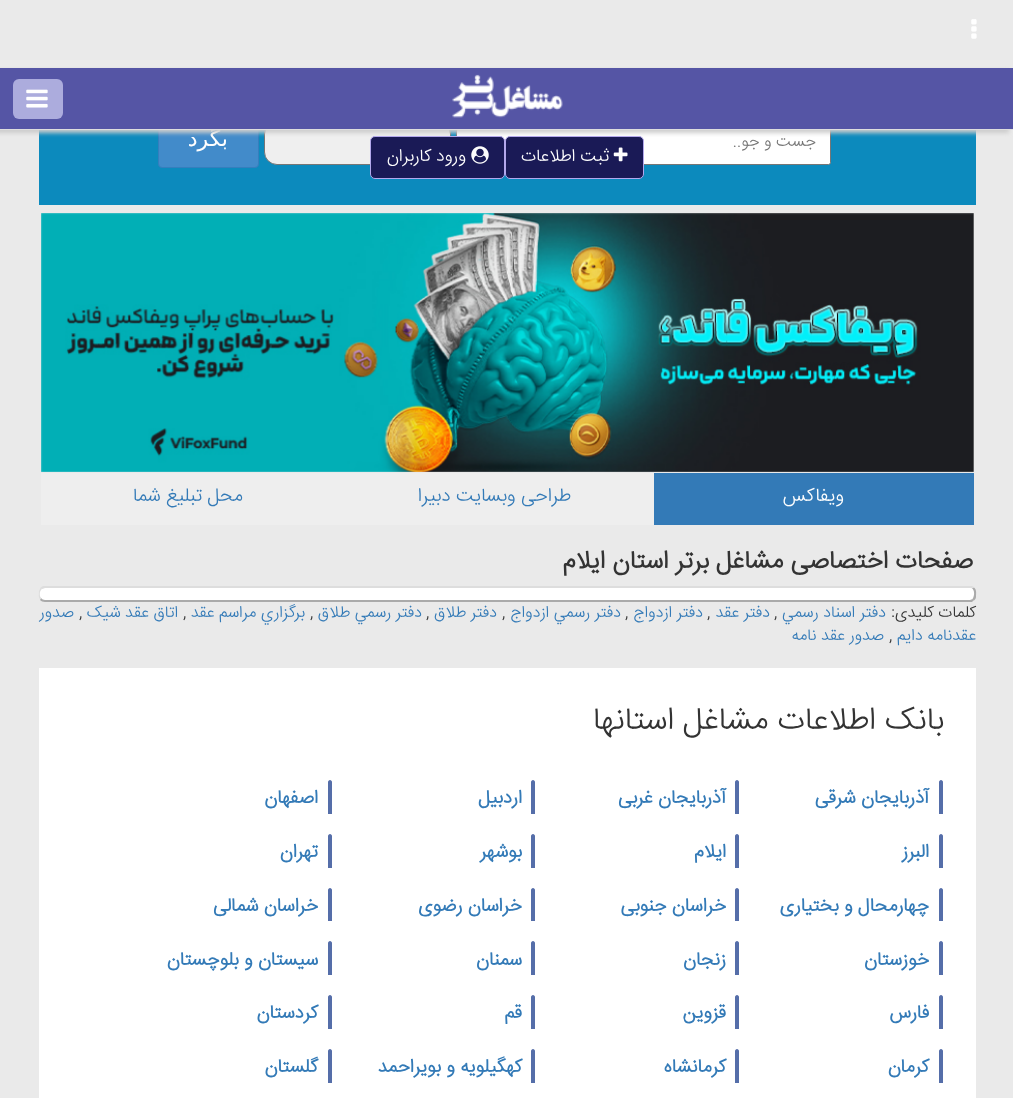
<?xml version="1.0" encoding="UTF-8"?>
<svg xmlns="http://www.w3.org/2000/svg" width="1013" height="1098">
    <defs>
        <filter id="blur1" x="-50%" y="-200%" width="200%" height="500%"><feGaussianBlur stdDeviation="2"/></filter>
    </defs>
    <rect width="100%" height="100%" fill="#EAEAEA"/>
    <image x="971" y="19" width="6" height="20" href="img_01.png"/>
    <rect x="39" y="130" width="937" height="75" fill="#0C8ABD"/>
    <rect x="456.5" y="121.5" width="374" height="43" rx="2" fill="#FFFFFF" stroke="#767676"/>
    <text x="816" y="146" font-family="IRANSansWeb" font-size="16.25" font-weight="300" direction="rtl" fill="#757575">جست و جو..</text>
    <rect x="264.5" y="121.5" width="186" height="43" rx="12.5" fill="#EFEFEF" stroke="#767676"/>
    <rect x="158.5" y="114.5" width="100" height="53" rx="3.5" fill="#428BCA" stroke="#357EBD"/>
    <text x="228" y="146" font-family="DejaVu Sans" font-size="22" direction="rtl" fill="#FFFFFF">بگرد</text>
    <image x="41" y="213" width="933" height="259" href="img_02.png"/>
    <rect x="41" y="473" width="613" height="52" fill="#EEEEEE"/>
    <rect x="654" y="473" width="320" height="52" fill="#337AB7"/>
    <text x="844" y="501" font-family="IRANSansWeb" font-size="19" font-weight="300" direction="rtl" fill="#FFFFFF">ویفاکس</text>
    <text x="571" y="501" font-family="IRANSansWeb" font-size="19" font-weight="300" direction="rtl" fill="#337AB7">طراحی وبسایت دبیرا</text>
    <text x="243" y="501" font-family="IRANSansWeb" font-size="19" font-weight="300" direction="rtl" fill="#337AB7">محل تبلیغ شما</text>
    <text x="973" y="568" font-family="IRANSansWeb" font-size="25" font-weight="700" direction="rtl" fill="#333333">صفحات اختصاصی مشاغل برتر استان ايلام</text>
    <path d="M 45 588 H 970 C 974 588 974 592 974 594 C 974 597 973 600 970 600 H 45 C 38 600 38 588 45 588 Z" fill="#FFFFFF"/>
    <path d="M 45 588 L 42 589 L 40 588 L 43 586 H 972 L 974 587 L 972 588 H 970 Z" fill="#DDDDDD"/>
    <path d="M 976 597 C 976 598.5 975 599.5 974 600.5 L 972.5 599 C 974.5 596.5 975 590 972 588.5 L 974 587.5 C 977 590 976 593.5 976 597 Z" fill="#AAAAAA"/>
    <path d="M 974 600 L 972 602 H 45 C 43 602 41 601 40 600 L 41 598 C 42 599 43 600 45 600 H 970 L 973 599 Z" fill="#AAAAAA"/>
    <path d="M 39 591 L 40.5 588 L 41.5 589 C 39.5 591.5 39 595.5 41 598 L 40 599.5 C 38 597 39 594 39 591 Z" fill="#DDDDDD"/>
    <text x="976" y="617" font-family="IRANSansWeb" font-size="16.25" font-weight="300" direction="rtl" fill="#333333">کلمات کلیدی:</text>
    <text x="886" y="617" font-family="IRANSansWeb" font-size="16.25" font-weight="300" direction="rtl" fill="#337AB7">دفتر اسناد رسمي</text>
    <text x="774" y="617" font-family="IRANSansWeb" font-size="16.25" font-weight="300" fill="#333333">,</text>
    <text x="770" y="617" font-family="IRANSansWeb" font-size="16.25" font-weight="300" direction="rtl" fill="#337AB7">دفتر عقد</text>
    <text x="707" y="617" font-family="IRANSansWeb" font-size="16.25" font-weight="300" fill="#333333">,</text>
    <text x="703" y="617" font-family="IRANSansWeb" font-size="16.25" font-weight="300" direction="rtl" fill="#337AB7">دفتر ازدواج</text>
    <text x="625" y="617" font-family="IRANSansWeb" font-size="16.25" font-weight="300" fill="#333333">,</text>
    <text x="621" y="617" font-family="IRANSansWeb" font-size="16.25" font-weight="300" direction="rtl" fill="#337AB7">دفتر رسمي ازدواج</text>
    <text x="502" y="617" font-family="IRANSansWeb" font-size="16.25" font-weight="300" fill="#333333">,</text>
    <text x="497" y="617" font-family="IRANSansWeb" font-size="16.25" font-weight="300" direction="rtl" fill="#337AB7">دفتر طلاق</text>
    <text x="426" y="617" font-family="IRANSansWeb" font-size="16.25" font-weight="300" fill="#333333">,</text>
    <text x="422" y="617" font-family="IRANSansWeb" font-size="16.25" font-weight="300" direction="rtl" fill="#337AB7">دفتر رسمي طلاق</text>
    <text x="310" y="617" font-family="IRANSansWeb" font-size="16.25" font-weight="300" fill="#333333">,</text>
    <text x="305" y="617" font-family="IRANSansWeb" font-size="16.25" font-weight="300" direction="rtl" fill="#337AB7">برگزاري مراسم عقد</text>
    <text x="183" y="617" font-family="IRANSansWeb" font-size="16.25" font-weight="300" fill="#333333">,</text>
    <text x="178" y="617" font-family="IRANSansWeb" font-size="16.25" font-weight="300" direction="rtl" fill="#337AB7">اتاق عقد شيک</text>
    <text x="79" y="617" font-family="IRANSansWeb" font-size="16.25" font-weight="300" fill="#333333">,</text>
    <text x="74" y="617" font-family="IRANSansWeb" font-size="16.25" font-weight="300" direction="rtl" fill="#337AB7">صدور</text>
    <text x="976" y="640" font-family="IRANSansWeb" font-size="16.25" font-weight="300" direction="rtl" fill="#337AB7">عقدنامه دايم</text>
    <text x="889" y="640" font-family="IRANSansWeb" font-size="16.25" font-weight="300" fill="#333333">,</text>
    <text x="884" y="640" font-family="IRANSansWeb" font-size="16.25" font-weight="300" direction="rtl" fill="#337AB7">صدور عقد نامه</text>
    <rect x="-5" y="70" width="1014" height="63" fill="#CCCCCC" filter="url(#blur1)"/>
    <rect x="0" y="68" width="1013" height="61" fill="#5555A5"/>
    <rect x="0" y="129" width="1013" height="1" fill="#DEDEDE"/>
    <image x="452" y="74" width="111" height="44" href="img_03.png"/>
    <rect x="13" y="79" width="50" height="40" rx="6" fill="#ACACDD"/>
    <image x="26" y="89" width="22" height="19" href="img_04.png"/>
    <rect x="505.5" y="136.5" width="138" height="42" rx="4.5" fill="#1A1A56" stroke="#B3A8EC"/>
    <image x="613" y="147" width="15" height="15" href="img_05.png"/>
    <text x="609" y="161" font-family="IRANSansWeb" font-size="17.5" font-weight="300" direction="rtl" fill="#FFFFFF">ثبت اطلاعات</text>
    <rect x="370.5" y="136.5" width="134" height="42" rx="4.5" fill="#1A1A56" stroke="#B3A8EC"/>
    <image x="471" y="146" width="18" height="18" href="img_06.png"/>
    <text x="466" y="161" font-family="IRANSansWeb" font-size="17.5" font-weight="300" direction="rtl" fill="#FFFFFF">ورود کاربران</text>
    <rect x="39" y="668" width="937" height="430" fill="#FFFFFF"/>
    <text x="944" y="729" font-family="IRANSansWeb" font-size="31.75" font-weight="300" direction="rtl" fill="#333333">بانک اطلاعات مشاغل استانها</text>
    <path d="M 941 780 C 942 780 943 781 943 782 V 814 H 939 V 782 C 939 781 940 780 941 780 Z" fill="#556EA9"/>
    <text x="929" y="803" font-family="IRANSansWeb" font-size="18.75" font-weight="700" direction="rtl" fill="#337AB7">آذربایجان شرقی</text>
    <path d="M 737 780 C 738 780 739 781 739 782 V 814 H 735 V 782 C 735 781 736 780 737 780 Z" fill="#556EA9"/>
    <text x="726" y="803" font-family="IRANSansWeb" font-size="18.75" font-weight="700" direction="rtl" fill="#337AB7">آذربایجان غربی</text>
    <path d="M 533 780 C 534 780 535 781 535 782 V 814 H 531 V 782 C 531 781 532 780 533 780 Z" fill="#556EA9"/>
    <text x="522" y="803" font-family="IRANSansWeb" font-size="18.75" font-weight="700" direction="rtl" fill="#337AB7">اردبیل</text>
    <path d="M 330 780 C 331 780 332 781 332 782 V 814 H 328 V 782 C 328 781 329 780 330 780 Z" fill="#556EA9"/>
    <text x="318" y="803" font-family="IRANSansWeb" font-size="18.75" font-weight="700" direction="rtl" fill="#337AB7">اصفهان</text>
    <path d="M 941 834 C 942 834 943 835 943 836 V 868 H 939 V 836 C 939 835 940 834 941 834 Z" fill="#556EA9"/>
    <text x="929" y="857" font-family="IRANSansWeb" font-size="18.75" font-weight="700" direction="rtl" fill="#337AB7">البرز</text>
    <path d="M 737 834 C 738 834 739 835 739 836 V 868 H 735 V 836 C 735 835 736 834 737 834 Z" fill="#556EA9"/>
    <text x="726" y="857" font-family="IRANSansWeb" font-size="18.75" font-weight="700" direction="rtl" fill="#337AB7">ایلام</text>
    <path d="M 533 834 C 534 834 535 835 535 836 V 868 H 531 V 836 C 531 835 532 834 533 834 Z" fill="#556EA9"/>
    <text x="522" y="857" font-family="IRANSansWeb" font-size="18.75" font-weight="700" direction="rtl" fill="#337AB7">بوشهر</text>
    <path d="M 330 834 C 331 834 332 835 332 836 V 868 H 328 V 836 C 328 835 329 834 330 834 Z" fill="#556EA9"/>
    <text x="318" y="857" font-family="IRANSansWeb" font-size="18.75" font-weight="700" direction="rtl" fill="#337AB7">تهران</text>
    <path d="M 941 888 C 942 888 943 889 943 890 V 921 H 939 V 890 C 939 889 940 888 941 888 Z" fill="#556EA9"/>
    <text x="929" y="911" font-family="IRANSansWeb" font-size="18.75" font-weight="700" direction="rtl" fill="#337AB7">چهارمحال و بختیاری</text>
    <path d="M 737 888 C 738 888 739 889 739 890 V 921 H 735 V 890 C 735 889 736 888 737 888 Z" fill="#556EA9"/>
    <text x="726" y="911" font-family="IRANSansWeb" font-size="18.75" font-weight="700" direction="rtl" fill="#337AB7">خراسان جنوبی</text>
    <path d="M 533 888 C 534 888 535 889 535 890 V 921 H 531 V 890 C 531 889 532 888 533 888 Z" fill="#556EA9"/>
    <text x="522" y="911" font-family="IRANSansWeb" font-size="18.75" font-weight="700" direction="rtl" fill="#337AB7">خراسان رضوی</text>
    <path d="M 330 888 C 331 888 332 889 332 890 V 921 H 328 V 890 C 328 889 329 888 330 888 Z" fill="#556EA9"/>
    <text x="318" y="911" font-family="IRANSansWeb" font-size="18.75" font-weight="700" direction="rtl" fill="#337AB7">خراسان شمالی</text>
    <path d="M 941 941 C 942 941 943 942 943 943 V 975 H 939 V 943 C 939 942 940 941 941 941 Z" fill="#556EA9"/>
    <text x="929" y="965" font-family="IRANSansWeb" font-size="18.75" font-weight="700" direction="rtl" fill="#337AB7">خوزستان</text>
    <path d="M 737 941 C 738 941 739 942 739 943 V 975 H 735 V 943 C 735 942 736 941 737 941 Z" fill="#556EA9"/>
    <text x="726" y="965" font-family="IRANSansWeb" font-size="18.75" font-weight="700" direction="rtl" fill="#337AB7">زنجان</text>
    <path d="M 533 941 C 534 941 535 942 535 943 V 975 H 531 V 943 C 531 942 532 941 533 941 Z" fill="#556EA9"/>
    <text x="522" y="965" font-family="IRANSansWeb" font-size="18.75" font-weight="700" direction="rtl" fill="#337AB7">سمنان</text>
    <path d="M 330 941 C 331 941 332 942 332 943 V 975 H 328 V 943 C 328 942 329 941 330 941 Z" fill="#556EA9"/>
    <text x="318" y="965" font-family="IRANSansWeb" font-size="18.75" font-weight="700" direction="rtl" fill="#337AB7">سیستان و بلوچستان</text>
    <path d="M 941 995 C 942 995 943 996 943 997 V 1029 H 939 V 997 C 939 996 940 995 941 995 Z" fill="#556EA9"/>
    <text x="929" y="1018" font-family="IRANSansWeb" font-size="18.75" font-weight="700" direction="rtl" fill="#337AB7">فارس</text>
    <path d="M 737 995 C 738 995 739 996 739 997 V 1029 H 735 V 997 C 735 996 736 995 737 995 Z" fill="#556EA9"/>
    <text x="726" y="1018" font-family="IRANSansWeb" font-size="18.75" font-weight="700" direction="rtl" fill="#337AB7">قزوین</text>
    <path d="M 533 995 C 534 995 535 996 535 997 V 1029 H 531 V 997 C 531 996 532 995 533 995 Z" fill="#556EA9"/>
    <text x="522" y="1018" font-family="IRANSansWeb" font-size="18.75" font-weight="700" direction="rtl" fill="#337AB7">قم</text>
    <path d="M 330 995 C 331 995 332 996 332 997 V 1029 H 328 V 997 C 328 996 329 995 330 995 Z" fill="#556EA9"/>
    <text x="318" y="1018" font-family="IRANSansWeb" font-size="18.75" font-weight="700" direction="rtl" fill="#337AB7">کردستان</text>
    <path d="M 941 1049 C 942 1049 943 1050 943 1051 V 1083 H 939 V 1051 C 939 1050 940 1049 941 1049 Z" fill="#556EA9"/>
    <text x="929" y="1072" font-family="IRANSansWeb" font-size="18.75" font-weight="700" direction="rtl" fill="#337AB7">کرمان</text>
    <path d="M 737 1049 C 738 1049 739 1050 739 1051 V 1083 H 735 V 1051 C 735 1050 736 1049 737 1049 Z" fill="#556EA9"/>
    <text x="726" y="1072" font-family="IRANSansWeb" font-size="18.75" font-weight="700" direction="rtl" fill="#337AB7">کرمانشاه</text>
    <path d="M 533 1049 C 534 1049 535 1050 535 1051 V 1083 H 531 V 1051 C 531 1050 532 1049 533 1049 Z" fill="#556EA9"/>
    <text x="522" y="1072" font-family="IRANSansWeb" font-size="18.75" font-weight="700" direction="rtl" fill="#337AB7">کهگیلویه و بویراحمد</text>
    <path d="M 330 1049 C 331 1049 332 1050 332 1051 V 1083 H 328 V 1051 C 328 1050 329 1049 330 1049 Z" fill="#556EA9"/>
    <text x="318" y="1072" font-family="IRANSansWeb" font-size="18.75" font-weight="700" direction="rtl" fill="#337AB7">گلستان</text>
</svg>
